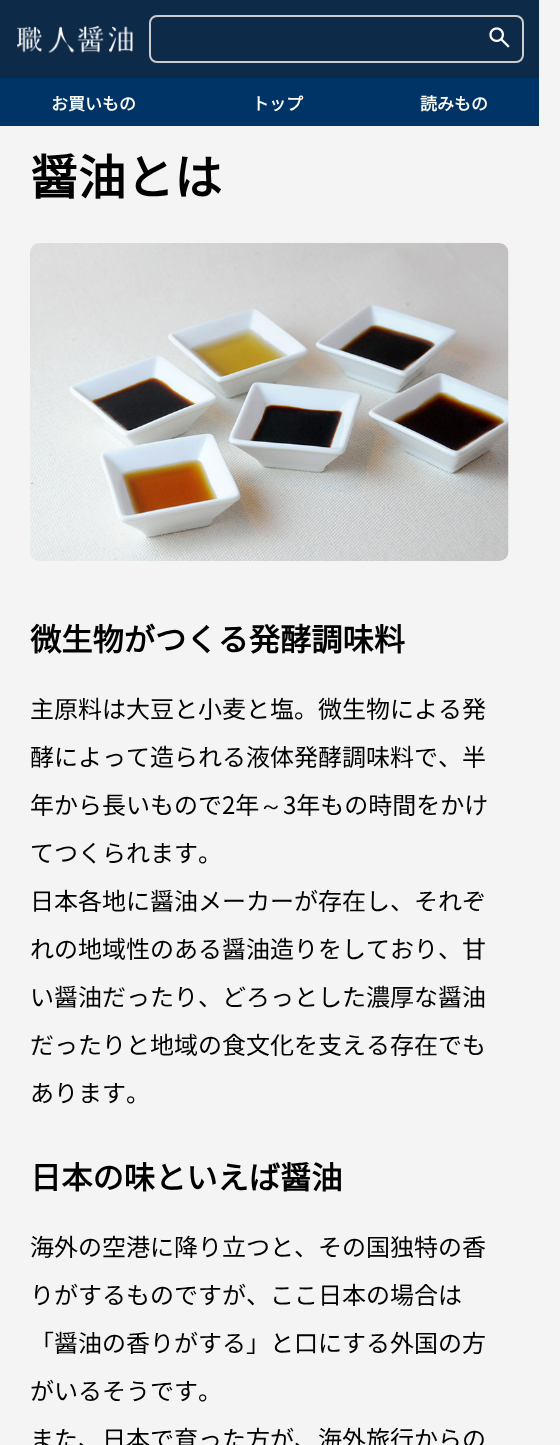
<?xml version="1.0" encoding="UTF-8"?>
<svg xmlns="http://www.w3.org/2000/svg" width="560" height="1445">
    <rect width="100%" height="100%" fill="#F4F4F4"/>
    <rect x="0" y="0" width="539" height="78" fill="#0D2A49"/>
    <image x="17" y="25" width="116" height="29" href="img_01.png"/>
    <rect x="150" y="16" width="373" height="46" rx="7" fill="none" stroke="#CCCCCC" stroke-width="2"/>
    <image x="489" y="27" width="21" height="21" href="img_02.png"/>
    <rect x="0" y="78" width="539" height="48" fill="#003366"/>
    <text x="51" y="110" font-family="'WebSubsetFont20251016'" font-size="17" font-weight="700" fill="#FBFAF5">お買いもの</text>
    <text x="252" y="110" font-family="'WebSubsetFont20251016'" font-size="17" font-weight="700" fill="#FBFAF5">トップ</text>
    <text x="420" y="110" font-family="'WebSubsetFont20251016'" font-size="17" font-weight="700" fill="#FBFAF5">読みもの</text>
    <text x="30" y="195" font-family="'WebSubsetFont20251016'" font-size="48" font-weight="700" fill="#000000">醤油とは</text>
    <image x="30" y="243" width="479" height="318" href="img_03.png"/>
    <text x="30" y="651" font-family="'WebSubsetFont20251016'" font-size="31.25" font-weight="700" fill="#000000">微生物がつくる発酵調味料</text>
    <text x="30" y="718" font-family="'WebSubsetFont20251016'" font-size="24" fill="#000000">主原料は大豆と小麦と塩。微生物による発</text>
    <text x="30" y="766" font-family="'WebSubsetFont20251016'" font-size="24" fill="#000000">酵によって造られる液体発酵調味料で、半</text>
    <text x="30" y="814" font-family="'WebSubsetFont20251016'" font-size="24" fill="#000000">年から長いもので2年</text>
    <text x="259" y="814" font-family="WenQuanYi Zen Hei" font-size="24" font-weight="500" fill="#000000">～</text>
    <text x="283" y="814" font-family="'WebSubsetFont20251016'" font-size="24" fill="#000000">3年もの時間をかけ</text>
    <text x="30" y="862" font-family="'WebSubsetFont20251016'" font-size="24" fill="#000000">てつくられます。</text>
    <text x="30" y="910" font-family="'WebSubsetFont20251016'" font-size="24" fill="#000000">日本各地に醤油メーカーが存在し、それぞ</text>
    <text x="30" y="958" font-family="'WebSubsetFont20251016'" font-size="24" fill="#000000">れの地域性のある醤油造りをしており、甘</text>
    <text x="30" y="1006" font-family="'WebSubsetFont20251016'" font-size="24" fill="#000000">い醤油だったり、どろっとした濃厚な醤油</text>
    <text x="30" y="1054" font-family="'WebSubsetFont20251016'" font-size="24" fill="#000000">だったりと地域の食文化を支える存在でも</text>
    <text x="30" y="1102" font-family="'WebSubsetFont20251016'" font-size="24" fill="#000000">あります。</text>
    <text x="30" y="1189" font-family="'WebSubsetFont20251016'" font-size="31.25" font-weight="700" fill="#000000">日本の味といえば醤油</text>
    <text x="30" y="1256" font-family="'WebSubsetFont20251016'" font-size="24" fill="#000000">海外の空港に降り立つと、その国独特の香</text>
    <text x="30" y="1304" font-family="'WebSubsetFont20251016'" font-size="24" fill="#000000">りがするものですが、ここ日本の場合は</text>
    <text x="30" y="1352" font-family="'WebSubsetFont20251016'" font-size="24" fill="#000000">「醤油の香りがする」と口にする外国の方</text>
    <text x="30" y="1400" font-family="'WebSubsetFont20251016'" font-size="24" fill="#000000">がいるそうです。</text>
    <text x="30" y="1448" font-family="'WebSubsetFont20251016'" font-size="24" fill="#000000">また、日本で育った方が、海外旅行からの</text>
</svg>
